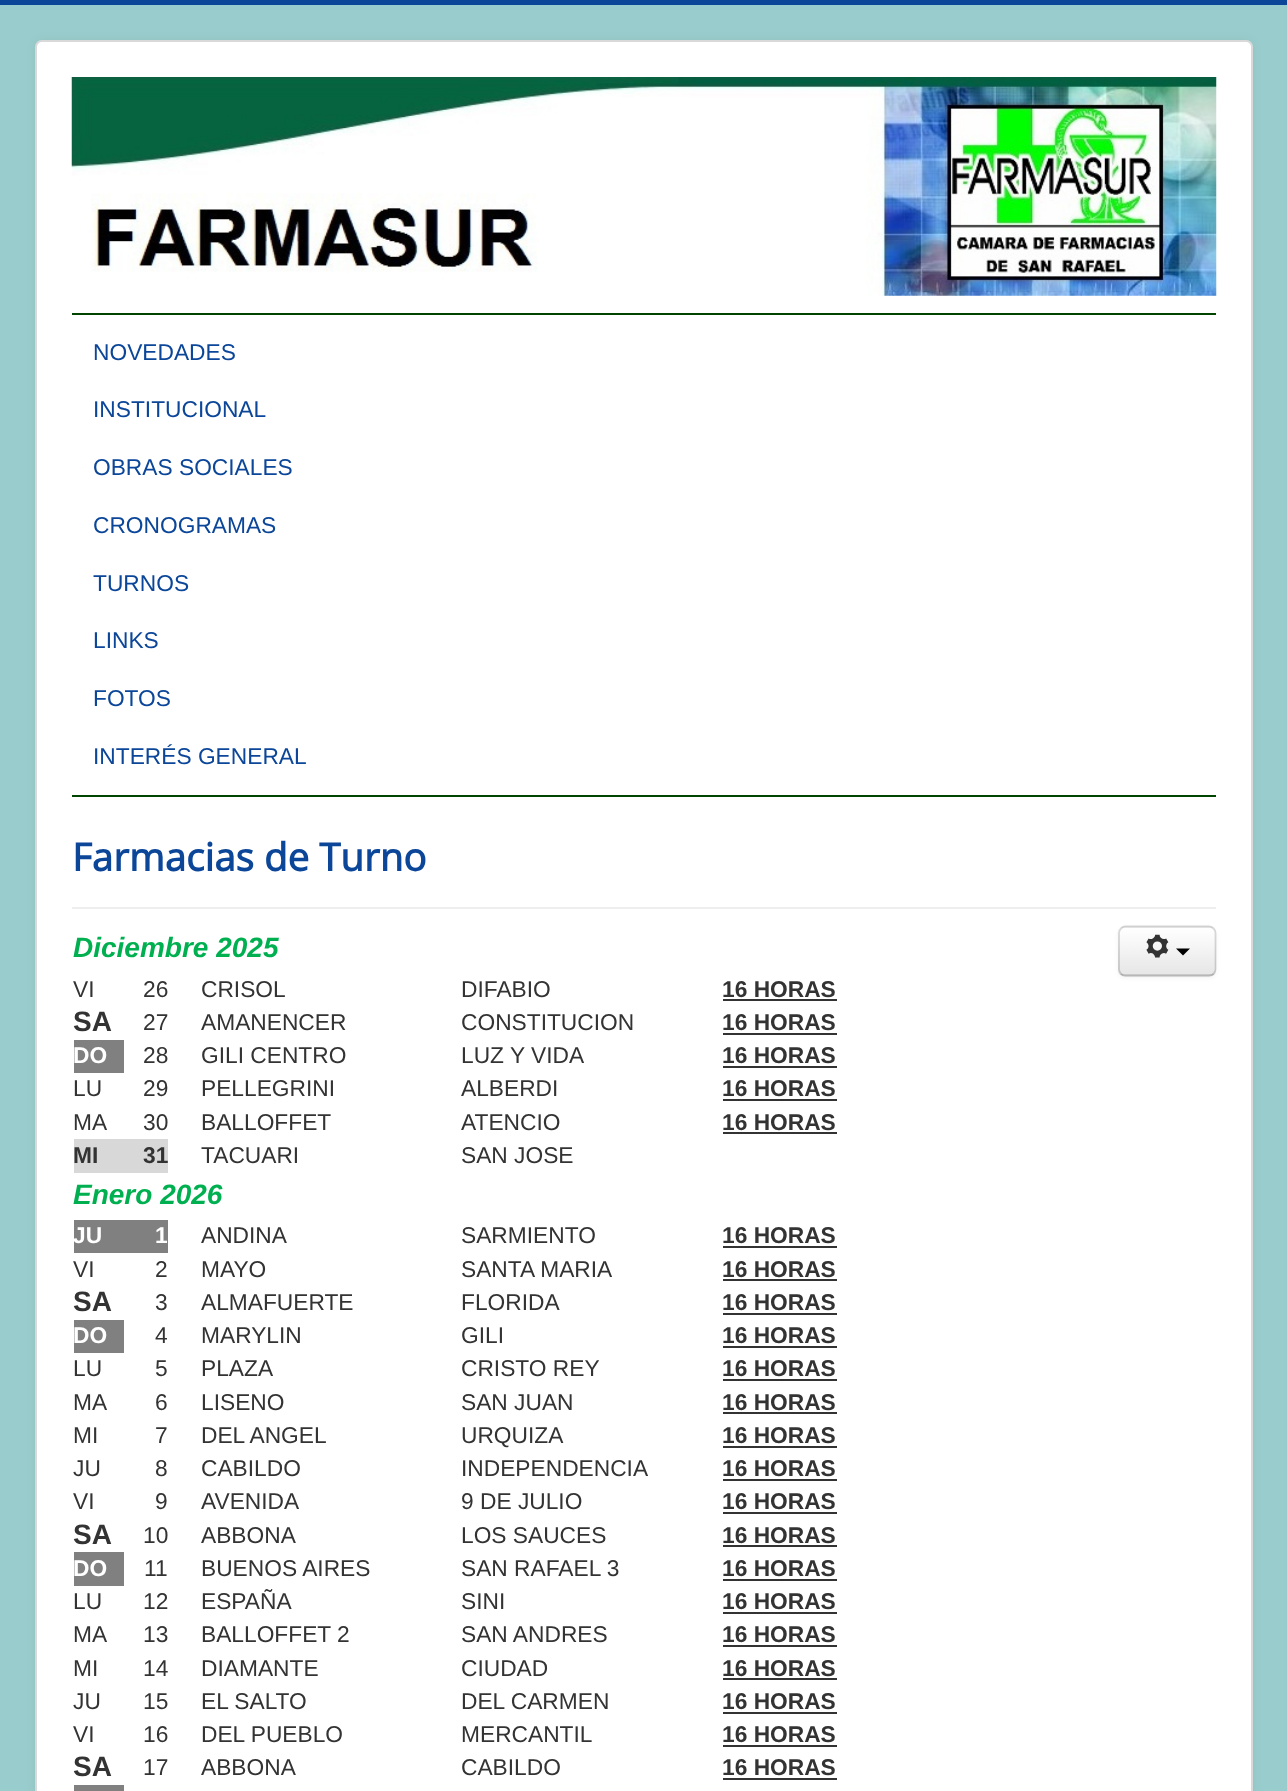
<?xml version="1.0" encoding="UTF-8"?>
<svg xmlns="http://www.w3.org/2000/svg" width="1287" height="1791">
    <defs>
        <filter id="blur1" x="-50%" y="-200%" width="200%" height="500%"><feGaussianBlur stdDeviation="5"/></filter>
        <filter id="blur2" x="-50%" y="-200%" width="200%" height="500%"><feGaussianBlur stdDeviation="2"/></filter>
        <clipPath id="clip1"><rect x="1118" y="926" width="98" height="51" rx="7"/></clipPath>
        <linearGradient id="g1" gradientUnits="userSpaceOnUse" x1="1167" y1="928" x2="1167" y2="975"><stop offset="0" stop-color="#FFFFFF"/><stop offset="1" stop-color="#E6E6E6"/></linearGradient>
    </defs>
    <rect width="100%" height="100%" fill="#99CCCC"/>
    <rect x="0" y="0" width="1287" height="5" fill="#0B4699"/>
    <rect x="35" y="40" width="1218" height="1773" rx="7" fill="#000000" fill-opacity="0.05" filter="url(#blur1)"/>
    <rect x="35" y="40" width="1218" height="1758" rx="7" fill="#FFFFFF"/>
    <rect x="36" y="41" width="1216" height="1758" rx="6" fill="none" stroke="#000000" stroke-opacity="0.15" stroke-width="2"/>
    <image x="71" y="77" width="1146" height="219" href="img_01.png"/>
    <rect x="72" y="313" width="1144" height="2" fill="#004400"/>
    <rect x="72" y="795" width="1144" height="2" fill="#004400"/>
    <text x="93" y="360" font-family="Liberation Sans" font-size="22.75" fill="#0B4699">NOVEDADES</text>
    <text x="93" y="417" font-family="Liberation Sans" font-size="22.75" fill="#0B4699">INSTITUCIONAL</text>
    <text x="93" y="475" font-family="Liberation Sans" font-size="22.75" fill="#0B4699">OBRAS SOCIALES</text>
    <text x="93" y="533" font-family="Liberation Sans" font-size="22.75" fill="#0B4699">CRONOGRAMAS</text>
    <text x="93" y="591" font-family="Liberation Sans" font-size="22.75" fill="#0B4699">TURNOS</text>
    <text x="93" y="648" font-family="Liberation Sans" font-size="22.75" fill="#0B4699">LINKS</text>
    <text x="93" y="706" font-family="Liberation Sans" font-size="22.75" fill="#0B4699">FOTOS</text>
    <text x="93" y="764" font-family="Liberation Sans" font-size="22.75" fill="#0B4699">INTERÉS GENERAL</text>
    <rect x="72" y="907" width="1144" height="2" fill="#EEEEEE"/>
    <text x="72" y="871" font-family="Open Sans" font-size="38.5" font-weight="700" fill="#0B4699">Farmacias de Turno</text>
    <text x="73" y="957" font-family="Liberation Sans" font-size="28" font-weight="700" font-style="italic" fill="#00B050">Diciembre 2025</text>
    <text x="73" y="997" font-family="Liberation Sans" font-size="22.75" fill="#333333">VI</text>
    <text x="143" y="997" font-family="Liberation Sans" font-size="22.75" fill="#333333">26</text>
    <text x="201" y="997" font-family="Liberation Sans" font-size="22.75" fill="#333333">CRISOL</text>
    <text x="461" y="997" font-family="Liberation Sans" font-size="22.75" fill="#333333">DIFABIO</text>
    <text x="722" y="997" font-family="Liberation Sans" font-size="22.75" font-weight="700" fill="#333333">16 HORAS</text>
    <rect x="723" y="999" width="114" height="2" fill="#333333"/>
    <text x="73" y="1031" font-family="Liberation Sans" font-size="28" font-weight="700" fill="#333333">SA</text>
    <text x="143" y="1030" font-family="Liberation Sans" font-size="22.75" fill="#333333">27</text>
    <text x="201" y="1030" font-family="Liberation Sans" font-size="22.75" fill="#333333">AMANENCER</text>
    <text x="461" y="1030" font-family="Liberation Sans" font-size="22.75" fill="#333333">CONSTITUCION</text>
    <text x="722" y="1030" font-family="Liberation Sans" font-size="22.75" font-weight="700" fill="#333333">16 HORAS</text>
    <rect x="723" y="1033" width="114" height="2" fill="#333333"/>
    <rect x="74" y="1040" width="50" height="33" fill="#808080"/>
    <text x="73" y="1063" font-family="Liberation Sans" font-size="22.75" font-weight="700" fill="#FFFFFF">DO</text>
    <text x="143" y="1063" font-family="Liberation Sans" font-size="22.75" fill="#333333">28</text>
    <text x="201" y="1063" font-family="Liberation Sans" font-size="22.75" fill="#333333">GILI CENTRO</text>
    <text x="461" y="1063" font-family="Liberation Sans" font-size="22.75" fill="#333333">LUZ Y VIDA</text>
    <text x="722" y="1063" font-family="Liberation Sans" font-size="22.75" font-weight="700" fill="#333333">16 HORAS</text>
    <rect x="723" y="1066" width="114" height="2" fill="#333333"/>
    <text x="73" y="1096" font-family="Liberation Sans" font-size="22.75" fill="#333333">LU</text>
    <text x="143" y="1096" font-family="Liberation Sans" font-size="22.75" fill="#333333">29</text>
    <text x="201" y="1096" font-family="Liberation Sans" font-size="22.75" fill="#333333">PELLEGRINI</text>
    <text x="461" y="1096" font-family="Liberation Sans" font-size="22.75" fill="#333333">ALBERDI</text>
    <text x="722" y="1096" font-family="Liberation Sans" font-size="22.75" font-weight="700" fill="#333333">16 HORAS</text>
    <rect x="723" y="1099" width="114" height="2" fill="#333333"/>
    <text x="73" y="1130" font-family="Liberation Sans" font-size="22.75" fill="#333333">MA</text>
    <text x="143" y="1130" font-family="Liberation Sans" font-size="22.75" fill="#333333">30</text>
    <text x="201" y="1130" font-family="Liberation Sans" font-size="22.75" fill="#333333">BALLOFFET</text>
    <text x="461" y="1130" font-family="Liberation Sans" font-size="22.75" fill="#333333">ATENCIO</text>
    <text x="722" y="1130" font-family="Liberation Sans" font-size="22.75" font-weight="700" fill="#333333">16 HORAS</text>
    <rect x="723" y="1132" width="114" height="2" fill="#333333"/>
    <rect x="74" y="1139" width="94" height="34" fill="#D8D8D8"/>
    <text x="73" y="1163" font-family="Liberation Sans" font-size="22.75" font-weight="700" fill="#333333">MI</text>
    <text x="143" y="1163" font-family="Liberation Sans" font-size="22.75" font-weight="700" fill="#333333">31</text>
    <text x="201" y="1163" font-family="Liberation Sans" font-size="22.75" fill="#333333">TACUARI</text>
    <text x="461" y="1163" font-family="Liberation Sans" font-size="22.75" fill="#333333">SAN JOSE</text>
    <text x="73" y="1204" font-family="Liberation Sans" font-size="28" font-weight="700" font-style="italic" fill="#00B050">Enero 2026</text>
    <rect x="74" y="1220" width="94" height="33" fill="#808080"/>
    <text x="73" y="1243" font-family="Liberation Sans" font-size="22.75" font-weight="700" fill="#FFFFFF">JU</text>
    <text x="155" y="1243" font-family="Liberation Sans" font-size="22.75" font-weight="700" fill="#FFFFFF">1</text>
    <text x="201" y="1243" font-family="Liberation Sans" font-size="22.75" fill="#333333">ANDINA</text>
    <text x="461" y="1243" font-family="Liberation Sans" font-size="22.75" fill="#333333">SARMIENTO</text>
    <text x="722" y="1243" font-family="Liberation Sans" font-size="22.75" font-weight="700" fill="#333333">16 HORAS</text>
    <rect x="723" y="1246" width="114" height="2" fill="#333333"/>
    <text x="73" y="1277" font-family="Liberation Sans" font-size="22.75" fill="#333333">VI</text>
    <text x="155" y="1277" font-family="Liberation Sans" font-size="22.75" fill="#333333">2</text>
    <text x="201" y="1277" font-family="Liberation Sans" font-size="22.75" fill="#333333">MAYO</text>
    <text x="461" y="1277" font-family="Liberation Sans" font-size="22.75" fill="#333333">SANTA MARIA</text>
    <text x="722" y="1277" font-family="Liberation Sans" font-size="22.75" font-weight="700" fill="#333333">16 HORAS</text>
    <rect x="723" y="1279" width="114" height="2" fill="#333333"/>
    <text x="73" y="1311" font-family="Liberation Sans" font-size="28" font-weight="700" fill="#333333">SA</text>
    <text x="155" y="1310" font-family="Liberation Sans" font-size="22.75" fill="#333333">3</text>
    <text x="201" y="1310" font-family="Liberation Sans" font-size="22.75" fill="#333333">ALMAFUERTE</text>
    <text x="461" y="1310" font-family="Liberation Sans" font-size="22.75" fill="#333333">FLORIDA</text>
    <text x="722" y="1310" font-family="Liberation Sans" font-size="22.75" font-weight="700" fill="#333333">16 HORAS</text>
    <rect x="723" y="1313" width="114" height="2" fill="#333333"/>
    <rect x="74" y="1320" width="50" height="33" fill="#808080"/>
    <text x="73" y="1343" font-family="Liberation Sans" font-size="22.75" font-weight="700" fill="#FFFFFF">DO</text>
    <text x="155" y="1343" font-family="Liberation Sans" font-size="22.75" fill="#333333">4</text>
    <text x="201" y="1343" font-family="Liberation Sans" font-size="22.75" fill="#333333">MARYLIN</text>
    <text x="461" y="1343" font-family="Liberation Sans" font-size="22.75" fill="#333333">GILI</text>
    <text x="722" y="1343" font-family="Liberation Sans" font-size="22.75" font-weight="700" fill="#333333">16 HORAS</text>
    <rect x="723" y="1346" width="114" height="2" fill="#333333"/>
    <text x="73" y="1376" font-family="Liberation Sans" font-size="22.75" fill="#333333">LU</text>
    <text x="155" y="1376" font-family="Liberation Sans" font-size="22.75" fill="#333333">5</text>
    <text x="201" y="1376" font-family="Liberation Sans" font-size="22.75" fill="#333333">PLAZA</text>
    <text x="461" y="1376" font-family="Liberation Sans" font-size="22.75" fill="#333333">CRISTO REY</text>
    <text x="722" y="1376" font-family="Liberation Sans" font-size="22.75" font-weight="700" fill="#333333">16 HORAS</text>
    <rect x="723" y="1379" width="114" height="2" fill="#333333"/>
    <text x="73" y="1410" font-family="Liberation Sans" font-size="22.75" fill="#333333">MA</text>
    <text x="155" y="1410" font-family="Liberation Sans" font-size="22.75" fill="#333333">6</text>
    <text x="201" y="1410" font-family="Liberation Sans" font-size="22.75" fill="#333333">LISENO</text>
    <text x="461" y="1410" font-family="Liberation Sans" font-size="22.75" fill="#333333">SAN JUAN</text>
    <text x="722" y="1410" font-family="Liberation Sans" font-size="22.75" font-weight="700" fill="#333333">16 HORAS</text>
    <rect x="723" y="1412" width="114" height="2" fill="#333333"/>
    <text x="73" y="1443" font-family="Liberation Sans" font-size="22.75" fill="#333333">MI</text>
    <text x="155" y="1443" font-family="Liberation Sans" font-size="22.75" fill="#333333">7</text>
    <text x="201" y="1443" font-family="Liberation Sans" font-size="22.75" fill="#333333">DEL ANGEL</text>
    <text x="461" y="1443" font-family="Liberation Sans" font-size="22.75" fill="#333333">URQUIZA</text>
    <text x="722" y="1443" font-family="Liberation Sans" font-size="22.75" font-weight="700" fill="#333333">16 HORAS</text>
    <rect x="723" y="1446" width="114" height="2" fill="#333333"/>
    <text x="73" y="1476" font-family="Liberation Sans" font-size="22.75" fill="#333333">JU</text>
    <text x="155" y="1476" font-family="Liberation Sans" font-size="22.75" fill="#333333">8</text>
    <text x="201" y="1476" font-family="Liberation Sans" font-size="22.75" fill="#333333">CABILDO</text>
    <text x="461" y="1476" font-family="Liberation Sans" font-size="22.75" fill="#333333">INDEPENDENCIA</text>
    <text x="722" y="1476" font-family="Liberation Sans" font-size="22.75" font-weight="700" fill="#333333">16 HORAS</text>
    <rect x="723" y="1479" width="114" height="2" fill="#333333"/>
    <text x="73" y="1509" font-family="Liberation Sans" font-size="22.75" fill="#333333">VI</text>
    <text x="155" y="1509" font-family="Liberation Sans" font-size="22.75" fill="#333333">9</text>
    <text x="201" y="1509" font-family="Liberation Sans" font-size="22.75" fill="#333333">AVENIDA</text>
    <text x="461" y="1509" font-family="Liberation Sans" font-size="22.75" fill="#333333">9 DE JULIO</text>
    <text x="722" y="1509" font-family="Liberation Sans" font-size="22.75" font-weight="700" fill="#333333">16 HORAS</text>
    <rect x="723" y="1512" width="114" height="2" fill="#333333"/>
    <text x="73" y="1544" font-family="Liberation Sans" font-size="28" font-weight="700" fill="#333333">SA</text>
    <text x="143" y="1543" font-family="Liberation Sans" font-size="22.75" fill="#333333">10</text>
    <text x="201" y="1543" font-family="Liberation Sans" font-size="22.75" fill="#333333">ABBONA</text>
    <text x="461" y="1543" font-family="Liberation Sans" font-size="22.75" fill="#333333">LOS SAUCES</text>
    <text x="722" y="1543" font-family="Liberation Sans" font-size="22.75" font-weight="700" fill="#333333">16 HORAS</text>
    <rect x="723" y="1545" width="114" height="2" fill="#333333"/>
    <rect x="74" y="1552" width="50" height="34" fill="#808080"/>
    <text x="73" y="1576" font-family="Liberation Sans" font-size="22.75" font-weight="700" fill="#FFFFFF">DO</text>
    <text x="144" y="1576" font-family="Liberation Sans" font-size="22.75" fill="#333333">11</text>
    <text x="201" y="1576" font-family="Liberation Sans" font-size="22.75" fill="#333333">BUENOS AIRES</text>
    <text x="461" y="1576" font-family="Liberation Sans" font-size="22.75" fill="#333333">SAN RAFAEL 3</text>
    <text x="722" y="1576" font-family="Liberation Sans" font-size="22.75" font-weight="700" fill="#333333">16 HORAS</text>
    <rect x="723" y="1579" width="114" height="2" fill="#333333"/>
    <text x="73" y="1609" font-family="Liberation Sans" font-size="22.75" fill="#333333">LU</text>
    <text x="143" y="1609" font-family="Liberation Sans" font-size="22.75" fill="#333333">12</text>
    <text x="201" y="1609" font-family="Liberation Sans" font-size="22.75" fill="#333333">ESPAÑA</text>
    <text x="461" y="1609" font-family="Liberation Sans" font-size="22.75" fill="#333333">SINI</text>
    <text x="722" y="1609" font-family="Liberation Sans" font-size="22.75" font-weight="700" fill="#333333">16 HORAS</text>
    <rect x="723" y="1612" width="114" height="2" fill="#333333"/>
    <text x="73" y="1642" font-family="Liberation Sans" font-size="22.75" fill="#333333">MA</text>
    <text x="143" y="1642" font-family="Liberation Sans" font-size="22.75" fill="#333333">13</text>
    <text x="201" y="1642" font-family="Liberation Sans" font-size="22.75" fill="#333333">BALLOFFET 2</text>
    <text x="461" y="1642" font-family="Liberation Sans" font-size="22.75" fill="#333333">SAN ANDRES</text>
    <text x="722" y="1642" font-family="Liberation Sans" font-size="22.75" font-weight="700" fill="#333333">16 HORAS</text>
    <rect x="723" y="1645" width="114" height="2" fill="#333333"/>
    <text x="73" y="1676" font-family="Liberation Sans" font-size="22.75" fill="#333333">MI</text>
    <text x="143" y="1676" font-family="Liberation Sans" font-size="22.75" fill="#333333">14</text>
    <text x="201" y="1676" font-family="Liberation Sans" font-size="22.75" fill="#333333">DIAMANTE</text>
    <text x="461" y="1676" font-family="Liberation Sans" font-size="22.75" fill="#333333">CIUDAD</text>
    <text x="722" y="1676" font-family="Liberation Sans" font-size="22.75" font-weight="700" fill="#333333">16 HORAS</text>
    <rect x="723" y="1678" width="114" height="2" fill="#333333"/>
    <text x="73" y="1709" font-family="Liberation Sans" font-size="22.75" fill="#333333">JU</text>
    <text x="143" y="1709" font-family="Liberation Sans" font-size="22.75" fill="#333333">15</text>
    <text x="201" y="1709" font-family="Liberation Sans" font-size="22.75" fill="#333333">EL SALTO</text>
    <text x="461" y="1709" font-family="Liberation Sans" font-size="22.75" fill="#333333">DEL CARMEN</text>
    <text x="722" y="1709" font-family="Liberation Sans" font-size="22.75" font-weight="700" fill="#333333">16 HORAS</text>
    <rect x="723" y="1712" width="114" height="2" fill="#333333"/>
    <text x="73" y="1742" font-family="Liberation Sans" font-size="22.75" fill="#333333">VI</text>
    <text x="143" y="1742" font-family="Liberation Sans" font-size="22.75" fill="#333333">16</text>
    <text x="201" y="1742" font-family="Liberation Sans" font-size="22.75" fill="#333333">DEL PUEBLO</text>
    <text x="461" y="1742" font-family="Liberation Sans" font-size="22.75" fill="#333333">MERCANTIL</text>
    <text x="722" y="1742" font-family="Liberation Sans" font-size="22.75" font-weight="700" fill="#333333">16 HORAS</text>
    <rect x="723" y="1745" width="114" height="2" fill="#333333"/>
    <text x="73" y="1776" font-family="Liberation Sans" font-size="28" font-weight="700" fill="#333333">SA</text>
    <text x="143" y="1775" font-family="Liberation Sans" font-size="22.75" fill="#333333">17</text>
    <text x="201" y="1775" font-family="Liberation Sans" font-size="22.75" fill="#333333">ABBONA</text>
    <text x="461" y="1775" font-family="Liberation Sans" font-size="22.75" fill="#333333">CABILDO</text>
    <text x="722" y="1775" font-family="Liberation Sans" font-size="22.75" font-weight="700" fill="#333333">16 HORAS</text>
    <rect x="723" y="1778" width="114" height="2" fill="#333333"/>
    <rect x="74" y="1785" width="50" height="6" fill="#808080"/>
    <rect x="1118" y="928" width="98" height="50" rx="7" fill="#000000" fill-opacity="0.05" filter="url(#blur2)"/>
    <rect x="1118" y="926" width="98" height="51" rx="7" fill="#F5F5F5"/>
    <g clip-path="url(#clip1)">
        <rect x="1118" y="928" width="98" height="47" fill="url(#g1)"/>
    </g>
    <path d="M 1125 929 H 1209 C 1212 929 1214 932 1214 934 V 971 L 1213 974 C 1214 973 1215 971 1215 970 V 933 C 1215 930 1213 928 1210 928 H 1125 C 1122 928 1120 930 1120 933 V 934 C 1120 932 1122 929 1125 929 Z" fill="#FFFFFF" fill-opacity="0.2"/>
    <path d="M 1213.5 974 C 1212.5 975 1211 975.5 1209 975.5 H 1125 C 1123.5 975.5 1122 975 1121 974" fill="none" stroke="#000000" stroke-opacity="0.25" stroke-width="1.8"/>
    <path d="M 1121 974 C 1120 972.5 1119 971 1119 969.5 V 933 C 1119 931 1120 929.5 1121 928.5 C 1122 927.5 1123.5 926.5 1125 926.5 H 1209 C 1211 926.5 1212.5 927.5 1213.5 928.5 C 1214.5 929.5 1215.5 931 1215.5 933 V 969.5 C 1215.5 971 1214.5 972.5 1213.5 974" fill="none" stroke="#000000" stroke-opacity="0.15" stroke-width="1.8"/>
    <text x="1146" y="956" font-family="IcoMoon" font-size="22.75" fill="#333333">8</text>
    <path d="M 1176 948.5 H 1190 L 1183 955.5 Z" fill="#000000"/>
</svg>
